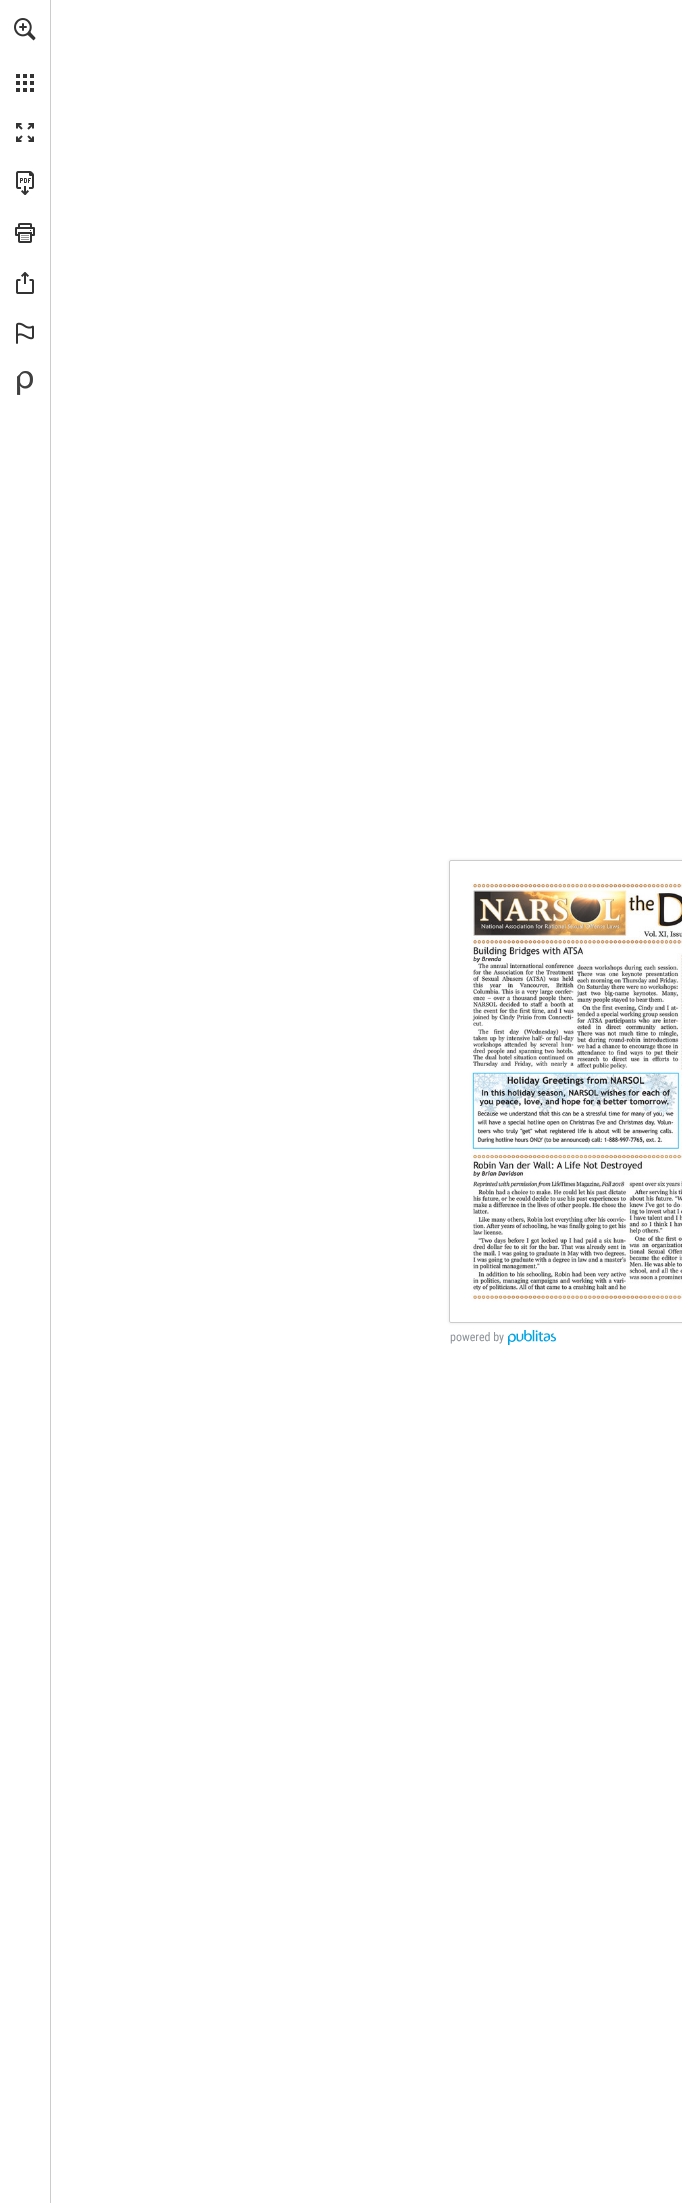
<?xml version="1.0" encoding="UTF-8"?>
<svg xmlns="http://www.w3.org/2000/svg" width="682" height="2203">
    <defs>
        <filter id="blur1" x="-50%" y="-200%" width="200%" height="500%"><feGaussianBlur stdDeviation="0.5"/></filter>
        <filter id="blur2" x="-50%" y="-200%" width="200%" height="500%"><feGaussianBlur stdDeviation="1"/></filter>
    </defs>
    <rect width="100%" height="100%" fill="#FFFFFF"/>
    <rect x="1" y="0" width="50" height="2203" fill="#000000" fill-opacity="0.2" filter="url(#blur1)"/>
    <rect x="0" y="0" width="50" height="2203" fill="#FFFFFF"/>
    <image x="14" y="18" width="22" height="23" href="img_01.png"/>
    <image x="16" y="74" width="18" height="18" href="img_02.png"/>
    <image x="16" y="123" width="18" height="19" href="img_03.png"/>
    <image x="16" y="171" width="18" height="24" href="img_04.png"/>
    <image x="15" y="223" width="20" height="20" href="img_05.png"/>
    <image x="16" y="272" width="18" height="22" href="img_06.png"/>
    <image x="16" y="322" width="18" height="22" href="img_07.png"/>
    <image x="17" y="371" width="16" height="24" href="img_08.png"/>
    <rect x="448" y="859" width="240" height="465" rx="3" fill="#121212" fill-opacity="0.05" filter="url(#blur2)"/>
    <rect x="449.5" y="860.5" width="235" height="462" rx="1.5" fill="#FFFFFF" stroke="#CCCCCC"/>
    <image x="450" y="882" width="232" height="440" href="img_09.png"/>
    <image x="508" y="1330" width="48" height="15" href="img_10.png"/>
    <text x="450" y="1341" font-family="Roboto Condensed" font-size="12" fill="#8F969B">powered by</text>
</svg>
